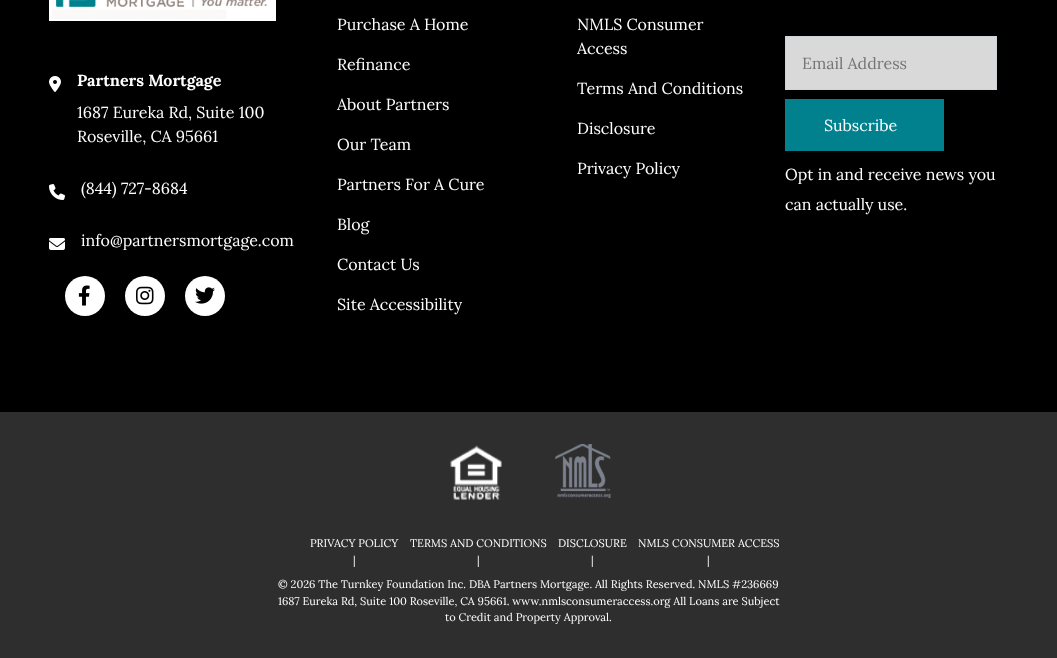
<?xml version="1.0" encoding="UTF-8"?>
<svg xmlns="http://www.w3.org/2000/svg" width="1057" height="658">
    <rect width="100%" height="100%" fill="#000000"/>
    <image x="49" y="0" width="227" height="21" href="img_01.png"/>
    <image x="49" y="76" width="12" height="16" href="img_02.png"/>
    <text x="77" y="86" font-family="Lora" font-size="16" font-weight="700" fill="#FFFFFF">Partners Mortgage</text>
    <text font-family="Lora" font-size="16" fill="#FFFFFF">
        <tspan x="77" y="118">1687 Eureka Rd, Suite 100</tspan>
        <tspan x="77" y="142">Roseville, CA 95661</tspan>
    </text>
    <image x="49" y="184" width="16" height="16" href="img_03.png"/>
    <text x="81" y="194" font-family="Lora" font-size="16" fill="#FFFFFF">(844) 727-8684</text>
    <image x="49" y="238" width="16" height="12" href="img_04.png"/>
    <text x="81" y="246" font-family="Lora" font-size="16" fill="#FFFFFF">info@partnersmortgage.com</text>
    <circle cx="85" cy="296" r="20" fill="#FFFFFF"/>
    <image x="78" y="285" width="12" height="21" href="img_05.png"/>
    <circle cx="145" cy="296" r="20" fill="#FFFFFF"/>
    <image x="136" y="286" width="18" height="19" href="img_06.png"/>
    <circle cx="205" cy="296" r="20" fill="#FFFFFF"/>
    <image x="195" y="287" width="20" height="17" href="img_07.png"/>
    <text x="337" y="30" font-family="Lora" font-size="16" fill="#FFFFFF">Purchase A Home</text>
    <text x="337" y="70" font-family="Lora" font-size="16" fill="#FFFFFF">Refinance</text>
    <text x="337" y="110" font-family="Lora" font-size="16" fill="#FFFFFF">About Partners</text>
    <text x="337" y="150" font-family="Lora" font-size="16" fill="#FFFFFF">Our Team</text>
    <text x="337" y="190" font-family="Lora" font-size="16" fill="#FFFFFF">Partners For A Cure</text>
    <text x="337" y="230" font-family="Lora" font-size="16" fill="#FFFFFF">Blog</text>
    <text x="337" y="270" font-family="Lora" font-size="16" fill="#FFFFFF">Contact Us</text>
    <text x="337" y="310" font-family="Lora" font-size="16" fill="#FFFFFF">Site Accessibility</text>
    <text font-family="Lora" font-size="16" fill="#FFFFFF">
        <tspan x="577" y="30">NMLS Consumer</tspan>
        <tspan x="577" y="54">Access</tspan>
    </text>
    <text x="577" y="94" font-family="Lora" font-size="16" fill="#FFFFFF">Terms And Conditions</text>
    <text x="577" y="134" font-family="Lora" font-size="16" fill="#FFFFFF">Disclosure</text>
    <text x="577" y="174" font-family="Lora" font-size="16" fill="#FFFFFF">Privacy Policy</text>
    <rect x="785.5" y="36.5" width="211" height="53" fill="#D9D9D9" stroke="#CED4DA"/>
    <text x="802" y="69" font-family="Lora" font-size="16" fill="#757575">Email Address</text>
    <rect x="785" y="99" width="159" height="52" fill="#01818E"/>
    <text x="824" y="131" font-family="Lora" font-size="16" fill="#FFFFFF">Subscribe</text>
    <text font-family="Lora" font-size="16" fill="#FFFFFF">
        <tspan x="785" y="180">Opt in and receive news you</tspan>
        <tspan x="785" y="210">can actually use.</tspan>
    </text>
    <rect x="0" y="412" width="1057" height="246" fill="#2E2E2E"/>
    <image x="450" y="445" width="52" height="55" href="img_08.png"/>
    <image x="555" y="444" width="56" height="54" href="img_09.png"/>
    <text x="310" y="547" font-family="Lora" font-size="11" fill="#FFFFFF">PRIVACY POLICY</text>
    <text x="353" y="564" font-family="Lora" font-size="11" fill="#FFFFFF">|</text>
    <text x="410" y="547" font-family="Lora" font-size="11" fill="#FFFFFF">TERMS AND CONDITIONS</text>
    <text x="477" y="564" font-family="Lora" font-size="11" fill="#FFFFFF">|</text>
    <text x="558" y="547" font-family="Lora" font-size="11" fill="#FFFFFF">DISCLOSURE</text>
    <text x="591" y="564" font-family="Lora" font-size="11" fill="#FFFFFF">|</text>
    <text x="638" y="547" font-family="Lora" font-size="11" fill="#FFFFFF">NMLS CONSUMER ACCESS</text>
    <text x="707" y="564" font-family="Lora" font-size="11" fill="#FFFFFF">|</text>
    <text font-family="Lora" font-size="11" fill="#FFFFFF">
        <tspan x="278" y="588">© 2026 The Turnkey Foundation Inc. DBA Partners Mortgage. All Rights Reserved. NMLS #236669</tspan>
        <tspan x="278" y="605">1687 Eureka Rd, Suite 100 Roseville, CA 95661. www.nmlsconsumeraccess.org All Loans are Subject</tspan>
    </text>
    <text x="445" y="621" font-family="Lora" font-size="11" fill="#FFFFFF">to Credit and Property Approval.</text>
</svg>
